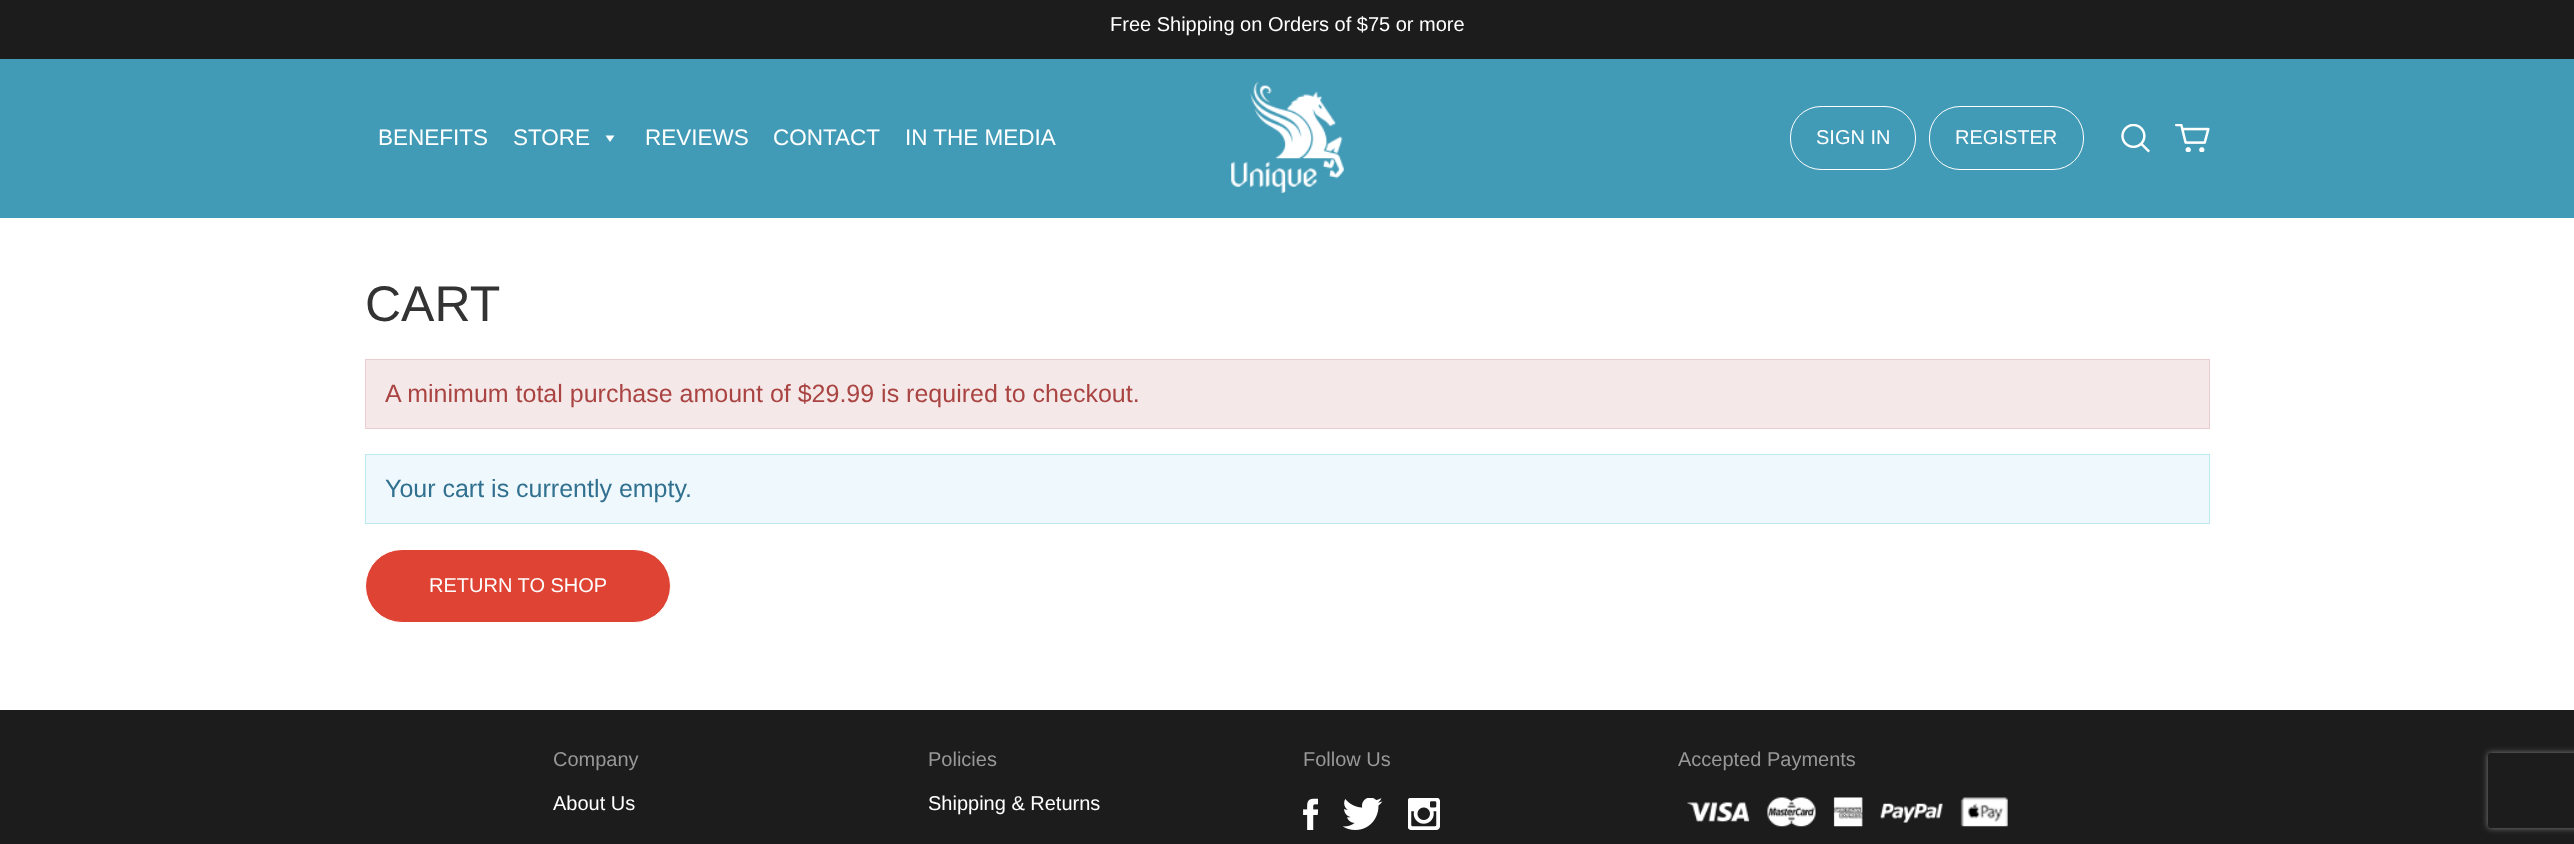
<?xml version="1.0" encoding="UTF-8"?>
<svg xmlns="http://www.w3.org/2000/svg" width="2574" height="844">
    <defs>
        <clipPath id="clip1"><path d="M 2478 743 H 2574 V 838 H 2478 Z M 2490.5 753 H 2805.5 C 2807 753 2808 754 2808 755.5 V 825.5 C 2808 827 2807 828 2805.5 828 H 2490.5 C 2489 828 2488 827 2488 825.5 V 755.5 C 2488 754 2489 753 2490.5 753 Z" clip-rule="evenodd"/></clipPath>
        <filter id="blur1" x="-50%" y="-200%" width="200%" height="500%"><feGaussianBlur stdDeviation="3"/></filter>
    </defs>
    <rect width="100%" height="100%" fill="#FFFFFF"/>
    <rect x="0" y="0" width="2574" height="59" fill="#1C1C1C"/>
    <text x="1110" y="31" font-family="Liberation Sans" font-size="20" fill="#FFFFFF">Free Shipping on Orders of $75 or more</text>
    <rect x="0" y="59" width="2574" height="159" fill="#429BB6"/>
    <text x="378" y="145" font-family="Liberation Sans" font-size="22.5" fill="#FFFFFF">BENEFITS</text>
    <text x="513" y="145" font-family="Liberation Sans" font-size="22.5" fill="#FFFFFF">STORE</text>
    <path d="M 614.5 135.5 L 610 142 L 605.5 135.5 Z" fill="#FFFFFF"/>
    <text x="645" y="145" font-family="Liberation Sans" font-size="22.5" fill="#FFFFFF">REVIEWS</text>
    <text x="773" y="145" font-family="Liberation Sans" font-size="22.5" fill="#FFFFFF">CONTACT</text>
    <text x="905" y="145" font-family="Liberation Sans" font-size="22.5" fill="#FFFFFF">IN THE MEDIA</text>
    <image x="1231" y="82" width="113" height="112" href="img_01.png"/>
    <rect x="1790.5" y="106.5" width="125" height="63" rx="30.5" fill="none" stroke="#FFFFFF"/>
    <text x="1816" y="144" font-family="Liberation Sans" font-size="20" fill="#FFFFFF">SIGN IN</text>
    <rect x="1929.5" y="106.5" width="154" height="63" rx="30.5" fill="none" stroke="#FFFFFF"/>
    <text x="1955" y="144" font-family="Liberation Sans" font-size="20" fill="#FFFFFF">REGISTER</text>
    <image x="2121" y="124" width="29" height="29" href="img_02.png"/>
    <image x="2175" y="124" width="35" height="28" href="img_03.png"/>
    <text x="365" y="321" font-family="Liberation Sans" font-size="50" fill="#333333">CART</text>
    <rect x="365.5" y="359.5" width="1844" height="69" fill="#F5E8E8" stroke="#EBCCD1"/>
    <text x="385" y="402" font-family="Liberation Sans" font-size="25" fill="#A94442">A minimum total purchase amount of $29.99 is required to checkout.</text>
    <rect x="365.5" y="454.5" width="1844" height="69" fill="#EEF8FD" stroke="#BCE8F1"/>
    <text x="385" y="497" font-family="Liberation Sans" font-size="25" fill="#31708F">Your cart is currently empty.</text>
    <rect x="365.5" y="549.5" width="305" height="73" rx="36.5" fill="#DE4333" stroke="#FFFFFF"/>
    <text x="429" y="592" font-family="Liberation Sans" font-size="20" fill="#FFFFFF">RETURN TO SHOP</text>
    <rect x="0" y="710" width="2574" height="134" fill="#1C1C1C"/>
    <text x="553" y="766" font-family="Liberation Sans" font-size="20" fill="#989898">Company</text>
    <text x="553" y="810" font-family="Liberation Sans" font-size="20" fill="#FFFFFF">About Us</text>
    <text x="928" y="766" font-family="Liberation Sans" font-size="20" fill="#989898">Policies</text>
    <text x="928" y="810" font-family="Liberation Sans" font-size="20" fill="#FFFFFF">Shipping &amp; Returns</text>
    <text x="1303" y="766" font-family="Liberation Sans" font-size="20" fill="#989898">Follow Us</text>
    <image x="1303" y="798" width="15" height="32" href="img_04.png"/>
    <image x="1343" y="798" width="40" height="32" href="img_05.png"/>
    <image x="1408" y="798" width="32" height="32" href="img_06.png"/>
    <text x="1678" y="766" font-family="Liberation Sans" font-size="20" fill="#989898">Accepted Payments</text>
    <image x="1687" y="797" width="321" height="30" href="img_07.png"/>
    <g clip-path="url(#clip1)">
        <rect x="2488" y="753" width="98" height="75" rx="2.5" fill="#808080" filter="url(#blur1)"/>
    </g>
</svg>
